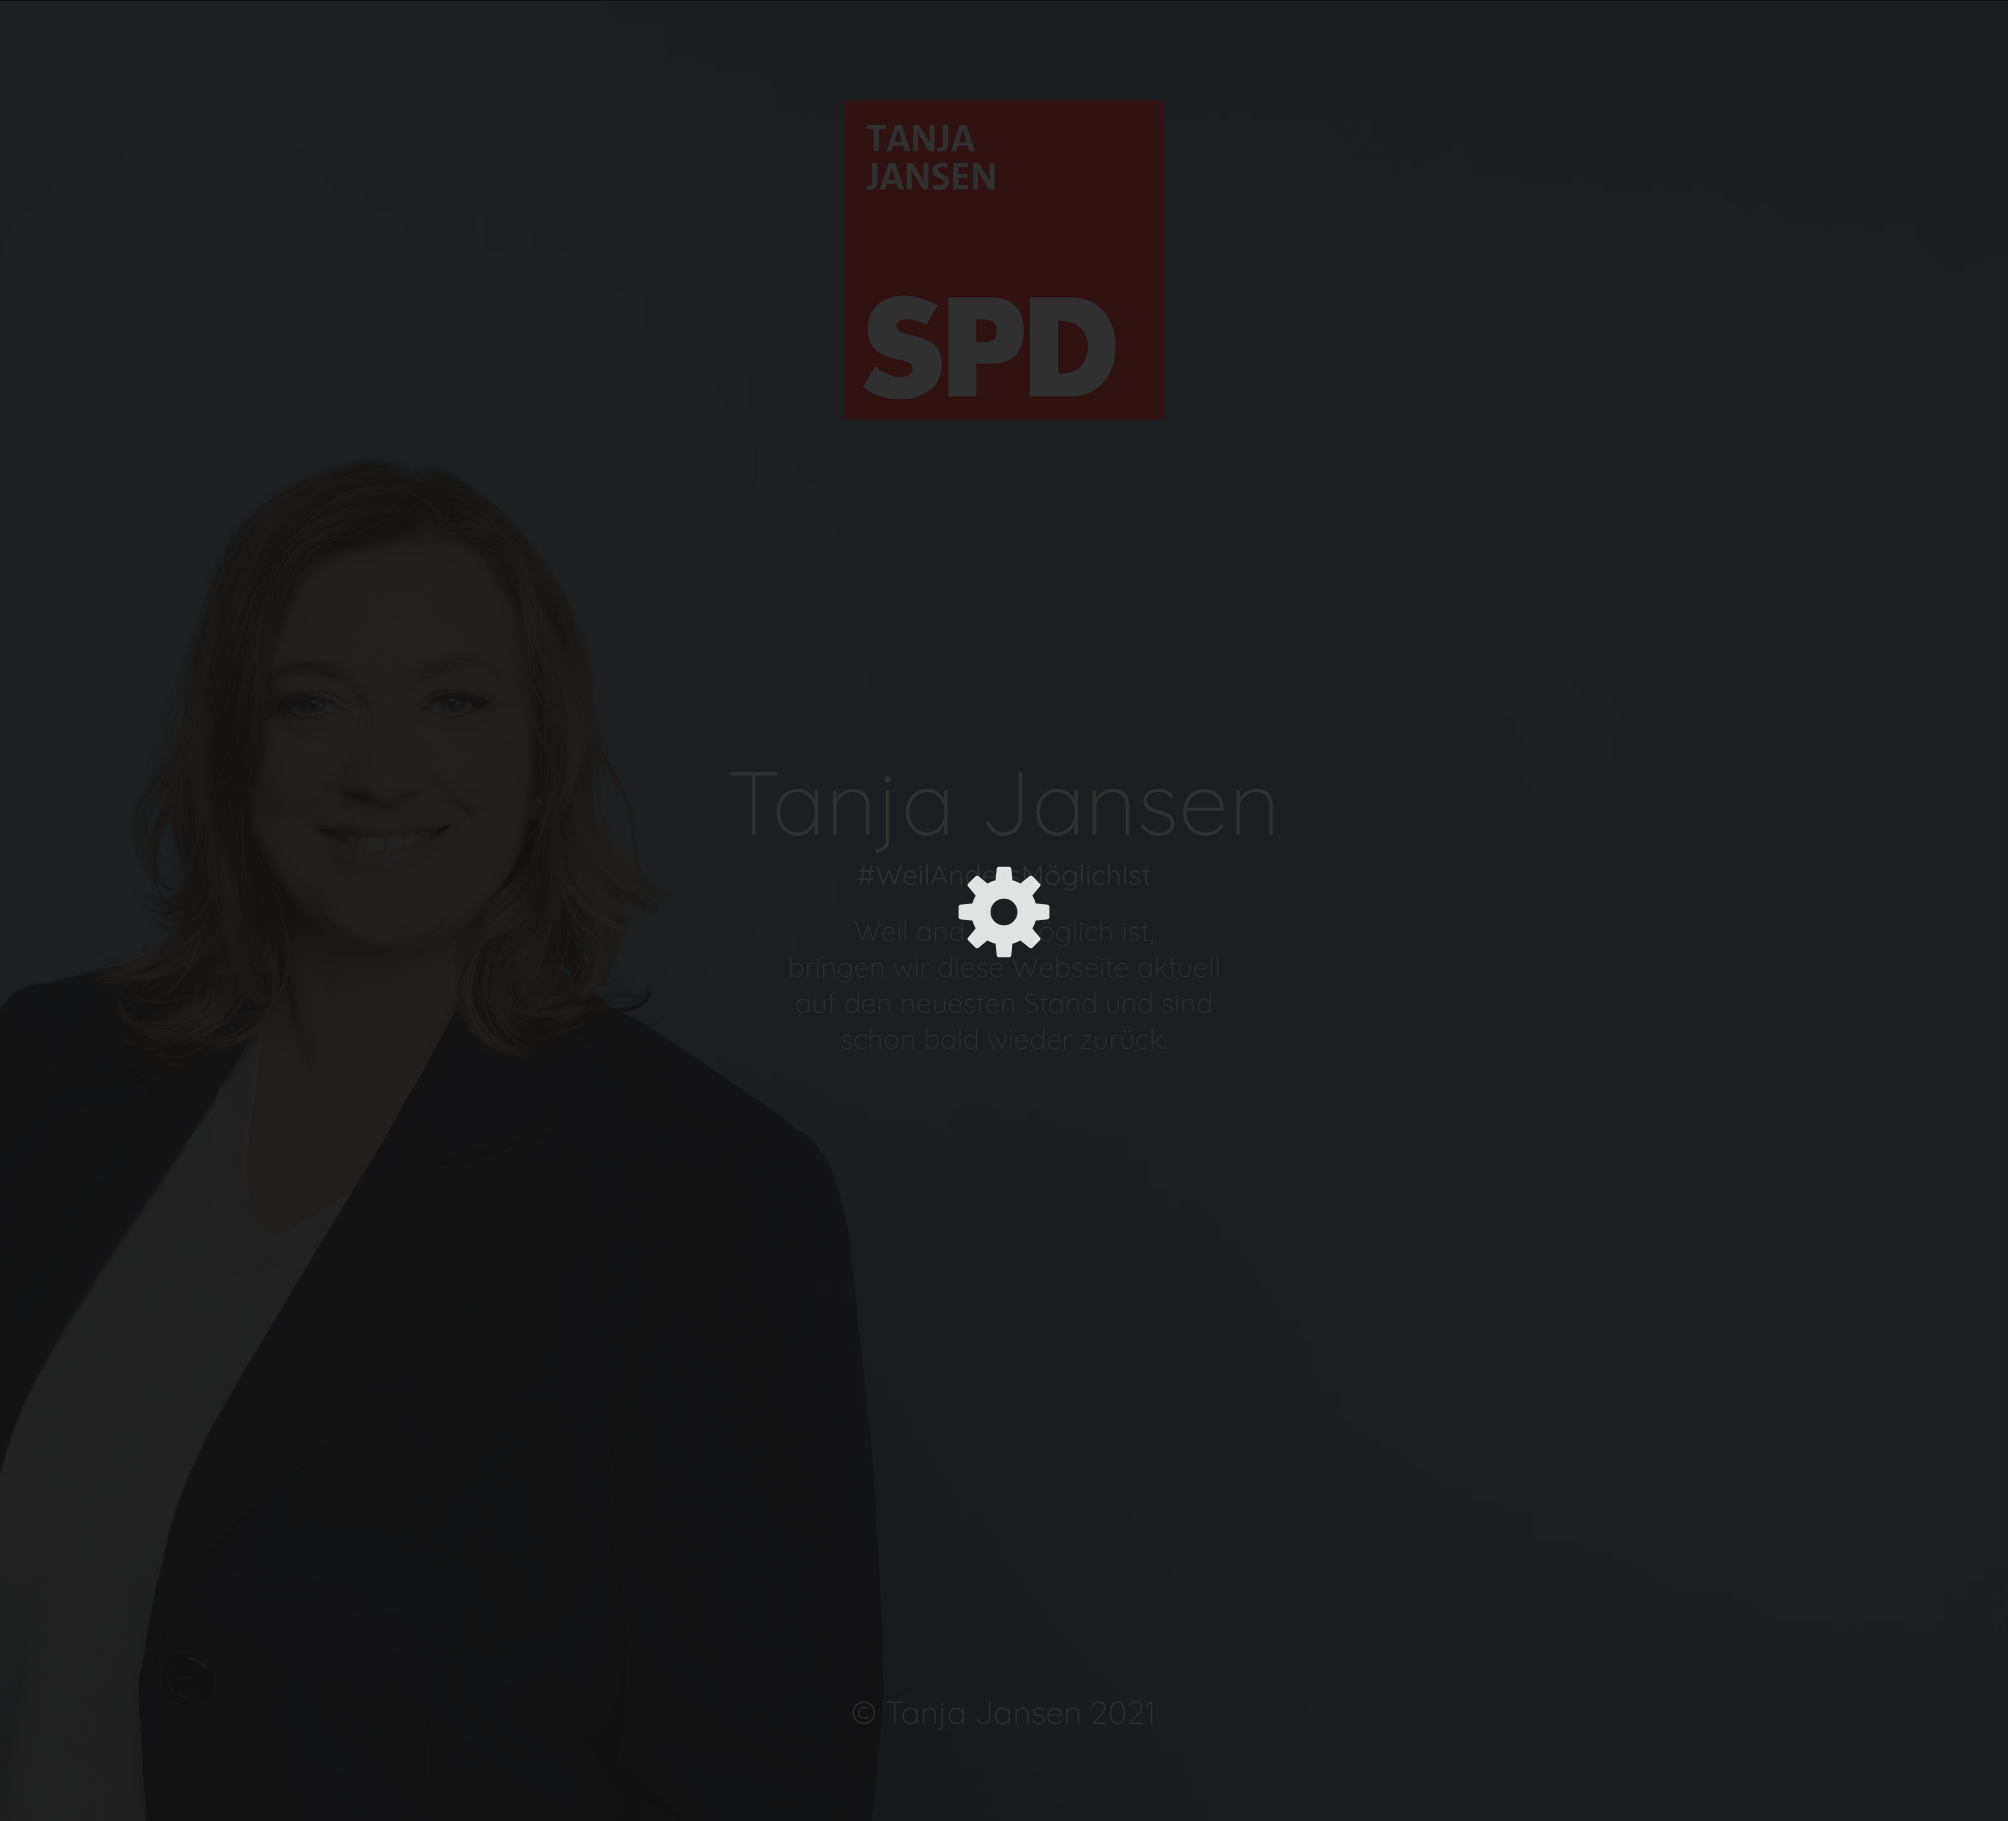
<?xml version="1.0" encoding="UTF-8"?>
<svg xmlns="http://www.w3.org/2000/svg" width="2008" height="1821">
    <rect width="100%" height="100%" fill="#111111"/>
    <image x="0" y="1" width="2008" height="1820" href="img_01.png"/>
    <image x="844" y="100" width="320" height="320" href="img_02.png"/>
    <text x="727" y="835" font-family="Quicksand" font-size="90" font-weight="300" fill="#303030">Tanja Jansen</text>
    <text x="857" y="885" font-family="Quicksand" font-size="28" fill="#303030">#WeilAndersMöglichIst</text>
    <text x="854" y="941" font-family="Quicksand" font-size="28" font-weight="300" fill="#303030">Weil and</text>
    <text x="1038" y="941" font-family="Quicksand" font-size="28" font-weight="300" fill="#303030">öglich ist,</text>
    <text x="788" y="977" font-family="Quicksand" font-size="28" font-weight="300" fill="#303030">bringen wir diese Webseite aktuell</text>
    <text x="795" y="1013" font-family="Quicksand" font-size="28" font-weight="300" fill="#303030">auf den neuesten Stand und sind</text>
    <text x="840" y="1049" font-family="Quicksand" font-size="28" font-weight="300" fill="#303030">schon bald wieder zurück.</text>
    <image x="958" y="866" width="92" height="92" href="img_03.png"/>
    <text x="851" y="1724" font-family="Quicksand" font-size="32" font-weight="300" fill="#303030">© Tanja Jansen 2021</text>
</svg>
